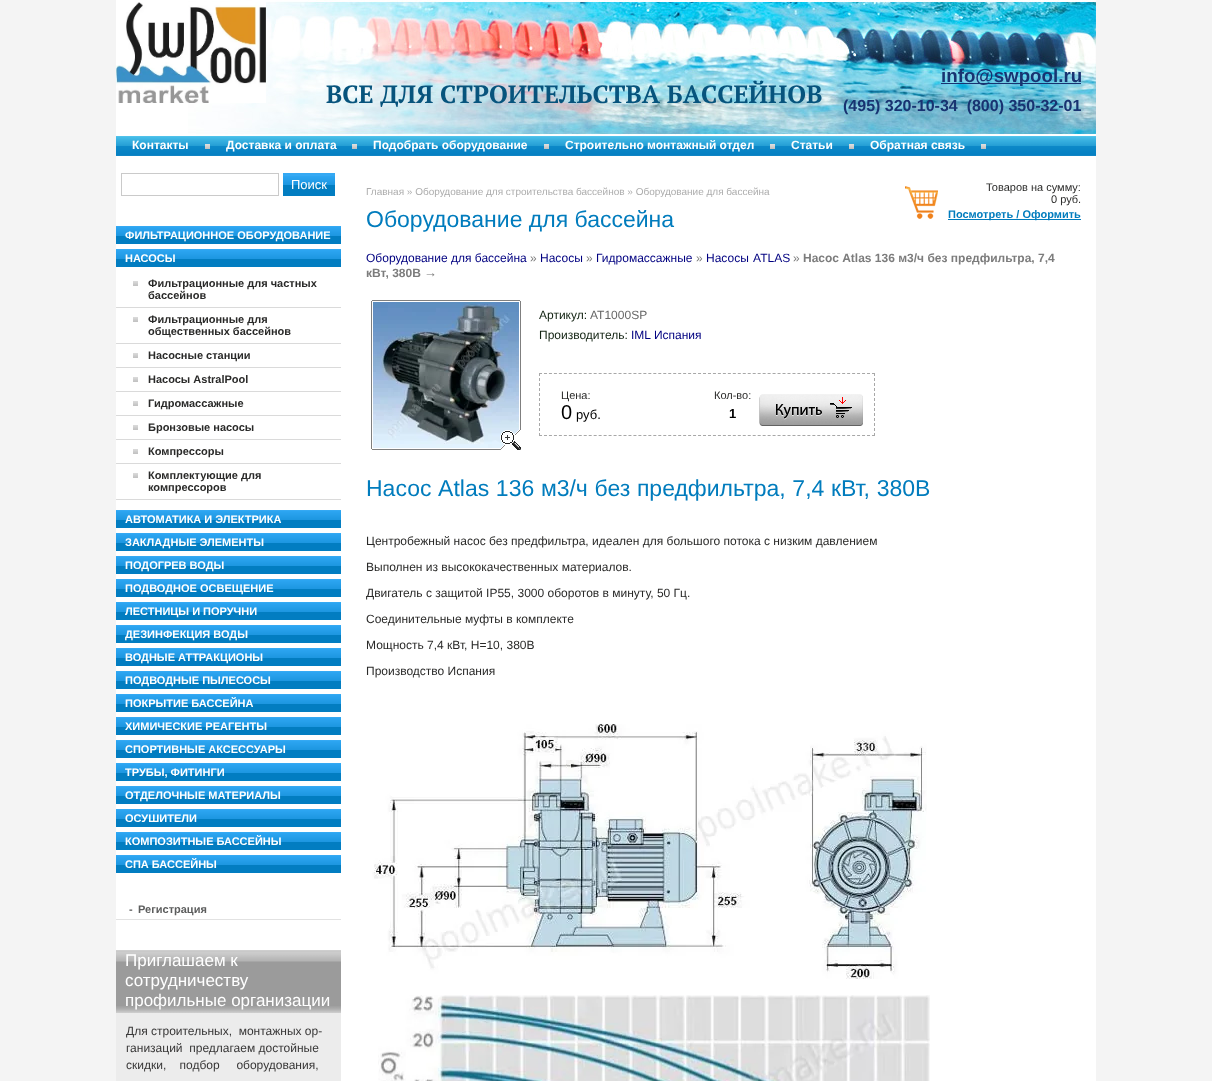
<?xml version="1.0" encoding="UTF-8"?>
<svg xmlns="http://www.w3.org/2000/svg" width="1212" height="1081">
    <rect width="100%" height="100%" fill="#F4F4F4"/>
    <rect x="116" y="0" width="980" height="1081" fill="#FFFFFF"/>
    <image x="188" y="0" width="908" height="135" href="img_01.png"/>
    <image x="116" y="2" width="150" height="101" href="img_02.png"/>
    <text x="326" y="103" font-family="PT Serif" font-size="25" font-weight="700" fill="#07547D">ВСЕ ДЛЯ СТРОИТЕЛЬСТВА БАССЕЙНОВ</text>
    <rect x="941" y="83" width="140" height="1" fill="#183371"/>
    <text x="941" y="82" font-family="Liberation Sans" font-size="18.75" font-weight="700" fill="#183371">info@swpool.ru</text>
    <text x="843" y="111" font-family="Liberation Sans" font-size="16" font-weight="700" fill="#183371" xml:space="preserve">(495) 320-10-34  (800) 350-32-01</text>
    <image x="116" y="136" width="980" height="20" href="img_03.png"/>
    <image x="205" y="144" width="5" height="5" href="img_04.png"/>
    <text x="132" y="149" font-family="Liberation Sans" font-size="12" font-weight="700" fill="#FFFFFF">Контакты</text>
    <image x="352" y="144" width="5" height="5" href="img_04.png"/>
    <text x="226" y="149" font-family="Liberation Sans" font-size="12" font-weight="700" fill="#FFFFFF">Доставка и оплата</text>
    <image x="544" y="144" width="5" height="5" href="img_04.png"/>
    <text x="373" y="149" font-family="Liberation Sans" font-size="12" font-weight="700" fill="#FFFFFF">Подобрать оборудование</text>
    <image x="770" y="144" width="5" height="5" href="img_04.png"/>
    <text x="565" y="149" font-family="Liberation Sans" font-size="12" font-weight="700" fill="#FFFFFF">Строительно монтажный отдел</text>
    <image x="849" y="144" width="5" height="5" href="img_04.png"/>
    <text x="791" y="149" font-family="Liberation Sans" font-size="12" font-weight="700" fill="#FFFFFF">Статьи</text>
    <image x="981" y="144" width="5" height="5" href="img_04.png"/>
    <text x="870" y="149" font-family="Liberation Sans" font-size="12" font-weight="700" fill="#FFFFFF">Обратная связь</text>
    <rect x="121.5" y="173.5" width="157" height="22" fill="none" stroke="#CACACA"/>
    <image x="283" y="173" width="52" height="23" href="img_05.png"/>
    <text x="291" y="189" font-family="Liberation Sans" font-size="13" fill="#FFFFFF">Поиск</text>
    <rect x="116" y="236" width="225" height="8" fill="#027DC1"/>
    <image x="116" y="226" width="225" height="10" href="img_06.png"/>
    <text x="125" y="239" font-family="Liberation Sans" font-size="11" font-weight="700" fill="#FFFFFF">ФИЛЬТРАЦИОННОЕ ОБОРУДОВАНИЕ</text>
    <rect x="116" y="259" width="225" height="8" fill="#027DC1"/>
    <image x="116" y="249" width="225" height="10" href="img_06.png"/>
    <text x="125" y="262" font-family="Liberation Sans" font-size="11" font-weight="700" fill="#FFFFFF">НАСОСЫ</text>
    <rect x="116" y="307" width="225" height="1" fill="#DADADA"/>
    <image x="133" y="281" width="5" height="5" href="img_07.png"/>
    <text font-family="Liberation Sans" font-size="11" font-weight="700" fill="#2A2A29">
        <tspan x="148" y="287">Фильтрационные для частных</tspan>
        <tspan x="148" y="299">бассейнов</tspan>
    </text>
    <rect x="116" y="343" width="225" height="1" fill="#DADADA"/>
    <image x="133" y="317" width="5" height="5" href="img_07.png"/>
    <text font-family="Liberation Sans" font-size="11" font-weight="700" fill="#2A2A29">
        <tspan x="148" y="323">Фильтрационные для</tspan>
        <tspan x="148" y="335">общественных бассейнов</tspan>
    </text>
    <rect x="116" y="367" width="225" height="1" fill="#DADADA"/>
    <image x="133" y="353" width="5" height="5" href="img_07.png"/>
    <text x="148" y="359" font-family="Liberation Sans" font-size="11" font-weight="700" fill="#2A2A29">Насосные станции</text>
    <rect x="116" y="391" width="225" height="1" fill="#DADADA"/>
    <image x="133" y="377" width="5" height="5" href="img_07.png"/>
    <text x="148" y="383" font-family="Liberation Sans" font-size="11" font-weight="700" fill="#2A2A29">Насосы AstralPool</text>
    <rect x="116" y="415" width="225" height="1" fill="#DADADA"/>
    <image x="133" y="401" width="5" height="5" href="img_07.png"/>
    <text x="148" y="407" font-family="Liberation Sans" font-size="11" font-weight="700" fill="#2A2A29">Гидромассажные</text>
    <rect x="116" y="439" width="225" height="1" fill="#DADADA"/>
    <image x="133" y="425" width="5" height="5" href="img_07.png"/>
    <text x="148" y="431" font-family="Liberation Sans" font-size="11" font-weight="700" fill="#2A2A29">Бронзовые насосы</text>
    <rect x="116" y="463" width="225" height="1" fill="#DADADA"/>
    <image x="133" y="449" width="5" height="5" href="img_07.png"/>
    <text x="148" y="455" font-family="Liberation Sans" font-size="11" font-weight="700" fill="#2A2A29">Компрессоры</text>
    <rect x="116" y="499" width="225" height="1" fill="#DADADA"/>
    <image x="133" y="473" width="5" height="5" href="img_07.png"/>
    <text font-family="Liberation Sans" font-size="11" font-weight="700" fill="#2A2A29">
        <tspan x="148" y="479">Комплектующие для</tspan>
        <tspan x="148" y="491">компрессоров</tspan>
    </text>
    <rect x="116" y="520" width="225" height="8" fill="#027DC1"/>
    <image x="116" y="510" width="225" height="10" href="img_06.png"/>
    <text x="125" y="523" font-family="Liberation Sans" font-size="11" font-weight="700" fill="#FFFFFF">АВТОМАТИКА И ЭЛЕКТРИКА</text>
    <rect x="116" y="543" width="225" height="8" fill="#027DC1"/>
    <image x="116" y="533" width="225" height="10" href="img_06.png"/>
    <text x="125" y="546" font-family="Liberation Sans" font-size="11" font-weight="700" fill="#FFFFFF">ЗАКЛАДНЫЕ ЭЛЕМЕНТЫ</text>
    <rect x="116" y="566" width="225" height="8" fill="#027DC1"/>
    <image x="116" y="556" width="225" height="10" href="img_06.png"/>
    <text x="125" y="569" font-family="Liberation Sans" font-size="11" font-weight="700" fill="#FFFFFF">ПОДОГРЕВ ВОДЫ</text>
    <rect x="116" y="589" width="225" height="8" fill="#027DC1"/>
    <image x="116" y="579" width="225" height="10" href="img_06.png"/>
    <text x="125" y="592" font-family="Liberation Sans" font-size="11" font-weight="700" fill="#FFFFFF">ПОДВОДНОЕ ОСВЕЩЕНИЕ</text>
    <rect x="116" y="612" width="225" height="8" fill="#027DC1"/>
    <image x="116" y="602" width="225" height="10" href="img_06.png"/>
    <text x="125" y="615" font-family="Liberation Sans" font-size="11" font-weight="700" fill="#FFFFFF">ЛЕСТНИЦЫ И ПОРУЧНИ</text>
    <rect x="116" y="635" width="225" height="8" fill="#027DC1"/>
    <image x="116" y="625" width="225" height="10" href="img_06.png"/>
    <text x="125" y="638" font-family="Liberation Sans" font-size="11" font-weight="700" fill="#FFFFFF">ДЕЗИНФЕКЦИЯ ВОДЫ</text>
    <rect x="116" y="658" width="225" height="8" fill="#027DC1"/>
    <image x="116" y="648" width="225" height="10" href="img_06.png"/>
    <text x="125" y="661" font-family="Liberation Sans" font-size="11" font-weight="700" fill="#FFFFFF">ВОДНЫЕ АТТРАКЦИОНЫ</text>
    <rect x="116" y="681" width="225" height="8" fill="#027DC1"/>
    <image x="116" y="671" width="225" height="10" href="img_06.png"/>
    <text x="125" y="684" font-family="Liberation Sans" font-size="11" font-weight="700" fill="#FFFFFF">ПОДВОДНЫЕ ПЫЛЕСОСЫ</text>
    <rect x="116" y="704" width="225" height="8" fill="#027DC1"/>
    <image x="116" y="694" width="225" height="10" href="img_06.png"/>
    <text x="125" y="707" font-family="Liberation Sans" font-size="11" font-weight="700" fill="#FFFFFF">ПОКРЫТИЕ БАССЕЙНА</text>
    <rect x="116" y="727" width="225" height="8" fill="#027DC1"/>
    <image x="116" y="717" width="225" height="10" href="img_06.png"/>
    <text x="125" y="730" font-family="Liberation Sans" font-size="11" font-weight="700" fill="#FFFFFF">ХИМИЧЕСКИЕ РЕАГЕНТЫ</text>
    <rect x="116" y="750" width="225" height="8" fill="#027DC1"/>
    <image x="116" y="740" width="225" height="10" href="img_06.png"/>
    <text x="125" y="753" font-family="Liberation Sans" font-size="11" font-weight="700" fill="#FFFFFF">СПОРТИВНЫЕ АКСЕССУАРЫ</text>
    <rect x="116" y="773" width="225" height="8" fill="#027DC1"/>
    <image x="116" y="763" width="225" height="10" href="img_06.png"/>
    <text x="125" y="776" font-family="Liberation Sans" font-size="11" font-weight="700" fill="#FFFFFF">ТРУБЫ, ФИТИНГИ</text>
    <rect x="116" y="796" width="225" height="8" fill="#027DC1"/>
    <image x="116" y="786" width="225" height="10" href="img_06.png"/>
    <text x="125" y="799" font-family="Liberation Sans" font-size="11" font-weight="700" fill="#FFFFFF">ОТДЕЛОЧНЫЕ МАТЕРИАЛЫ</text>
    <rect x="116" y="819" width="225" height="8" fill="#027DC1"/>
    <image x="116" y="809" width="225" height="10" href="img_06.png"/>
    <text x="125" y="822" font-family="Liberation Sans" font-size="11" font-weight="700" fill="#FFFFFF">ОСУШИТЕЛИ</text>
    <rect x="116" y="842" width="225" height="8" fill="#027DC1"/>
    <image x="116" y="832" width="225" height="10" href="img_06.png"/>
    <text x="125" y="845" font-family="Liberation Sans" font-size="11" font-weight="700" fill="#FFFFFF">КОМПОЗИТНЫЕ БАССЕЙНЫ</text>
    <rect x="116" y="865" width="225" height="8" fill="#027DC1"/>
    <image x="116" y="855" width="225" height="10" href="img_06.png"/>
    <text x="125" y="868" font-family="Liberation Sans" font-size="11" font-weight="700" fill="#FFFFFF">СПА БАССЕЙНЫ</text>
    <rect x="116" y="919" width="225" height="1" fill="#E2E2E2"/>
    <text x="129" y="913" font-family="Liberation Sans" font-size="11" font-weight="700" fill="#5C5D5D">-</text>
    <text x="138" y="913" font-family="Liberation Sans" font-size="11" font-weight="700" fill="#5C5D5D">Регистрация</text>
    <rect x="116" y="962" width="225" height="44" fill="#9B9B9B"/>
    <image x="116" y="1006" width="225" height="7" href="img_08.png"/>
    <image x="116" y="950" width="225" height="12" href="img_09.png"/>
    <text font-family="Liberation Sans" font-size="17" fill="#FFFFFF">
        <tspan x="125" y="966">Приглашаем к</tspan>
        <tspan x="125" y="986">сотрудничеству</tspan>
        <tspan x="125" y="1006">профильные организации</tspan>
    </text>
    <rect x="116" y="1013" width="225" height="68" fill="#ECECEC"/>
    <text font-family="Liberation Sans" font-size="12" fill="#383737" xml:space="preserve"><tspan x="126" y="1035">Для строительных,  монтажных ор-</tspan><tspan x="126" y="1052">ганизаций  предлагаем достойные</tspan><tspan x="126" y="1069">скидки,    подбор     оборудования,</tspan></text>
    <image x="905" y="186" width="33" height="33" href="img_10.png"/>
    <text x="986" y="191" font-family="Liberation Sans" font-size="11" fill="#2A2A29">Товаров на сумму:</text>
    <text x="1051" y="203" font-family="Liberation Sans" font-size="11" fill="#2A2A29">0 руб.</text>
    <rect x="948" y="219" width="133" height="1" fill="#017CBD"/>
    <text x="948" y="218" font-family="Liberation Sans" font-size="11" font-weight="700" fill="#017CBD">Посмотреть / Оформить</text>
    <text x="366" y="195" font-family="Liberation Sans" font-size="10" fill="#ACACAC">Главная » Оборудование для строительства бассейнов » Оборудование для бассейна</text>
    <text x="366" y="227" font-family="Liberation Sans" font-size="23" fill="#017CBD">Оборудование для бассейна</text>
    <text x="366" y="262" font-family="Liberation Sans" font-size="12" fill="#000080">Оборудование для бассейна</text>
    <text x="530" y="262" font-family="Liberation Sans" font-size="12" fill="#7C7C7C">»</text>
    <text x="540" y="262" font-family="Liberation Sans" font-size="12" fill="#000080">Насосы</text>
    <text x="586" y="262" font-family="Liberation Sans" font-size="12" fill="#7C7C7C">»</text>
    <text x="596" y="262" font-family="Liberation Sans" font-size="12" fill="#000080">Гидромассажные</text>
    <text x="696" y="262" font-family="Liberation Sans" font-size="12" fill="#7C7C7C">»</text>
    <text x="706" y="262" word-spacing="1" font-family="Liberation Sans" font-size="12" fill="#000080">Насосы ATLAS</text>
    <text x="793" y="262" font-family="Liberation Sans" font-size="12" fill="#7C7C7C">»</text>
    <text x="803" y="262" font-family="Liberation Sans" font-size="12" font-weight="700" fill="#7C7C7C">Насос Atlas 136 м3/ч без предфильтра, 7,4</text>
    <text x="366" y="277" font-family="Liberation Sans" font-size="12" font-weight="700" fill="#7C7C7C">кВт, 380В</text>
    <text x="424" y="277" font-family="Liberation Sans" font-size="13" fill="#7C7C7C">→</text>
    <image x="371" y="300" width="150" height="150" href="img_11.png"/>
    <text x="539" y="319" font-family="Liberation Sans" font-size="12" fill="#112211">Артикул:</text>
    <text x="590" y="319" font-family="Liberation Sans" font-size="12" fill="#666666">AT1000SP</text>
    <text x="539" y="339" font-family="Liberation Sans" font-size="12" fill="#112211">Производитель:</text>
    <text x="631" y="339" font-family="Liberation Sans" font-size="12" fill="#000080">IML Испания</text>
    <path d="M 539 373.5 H 875" fill="none" stroke="#A8A8A8" stroke-dasharray="3 1.97"/>
    <path d="M 874.5 373 V 436" fill="none" stroke="#A8A8A8" stroke-dasharray="3 2"/>
    <path d="M 539 435.5 H 875" fill="none" stroke="#A8A8A8" stroke-dasharray="3 1.97"/>
    <path d="M 539.5 373 V 436" fill="none" stroke="#A8A8A8" stroke-dasharray="3 2"/>
    <text x="561" y="399" font-family="Liberation Sans" font-size="11" fill="#2A2A29">Цена:</text>
    <text x="561" y="419" font-family="Liberation Sans" font-size="20" fill="#000000">0</text>
    <text x="576" y="419" font-family="Liberation Sans" font-size="13" fill="#000000">руб.</text>
    <text x="714" y="399" font-family="Liberation Sans" font-size="11" fill="#2A2A29">Кол-во:</text>
    <text x="729" y="418" font-family="Liberation Sans" font-size="13" font-weight="700" fill="#000000">1</text>
    <image x="759" y="394" width="104" height="32" href="img_12.png"/>
    <text x="366" y="496" word-spacing="0.25" font-family="Liberation Sans" font-size="23" fill="#017CBD">Насос Atlas 136 м3/ч без предфильтра, 7,4 кВт, 380В</text>
    <text x="366" y="545" font-family="Liberation Sans" font-size="12" fill="#2A2A29">Центробежный насос без предфильтра, идеален для большого потока с низким давлением</text>
    <text x="366" y="571" font-family="Liberation Sans" font-size="12" fill="#2A2A29">Выполнен из высококачественных материалов.</text>
    <text x="366" y="597" font-family="Liberation Sans" font-size="12" fill="#2A2A29">Двигатель с защитой IP55, 3000 оборотов в минуту, 50 Гц.</text>
    <text x="366" y="623" font-family="Liberation Sans" font-size="12" fill="#2A2A29">Соединительные муфты в комплекте</text>
    <text x="366" y="649" font-family="Liberation Sans" font-size="12" fill="#2A2A29">Мощность 7,4 кВт, Н=10, 380В</text>
    <text x="366" y="675" font-family="Liberation Sans" font-size="12" fill="#2A2A29">Производство Испания</text>
    <image x="372" y="724" width="555" height="255" href="img_13.png"/>
    <image x="378" y="995" width="552" height="86" href="img_14.png"/>
</svg>
